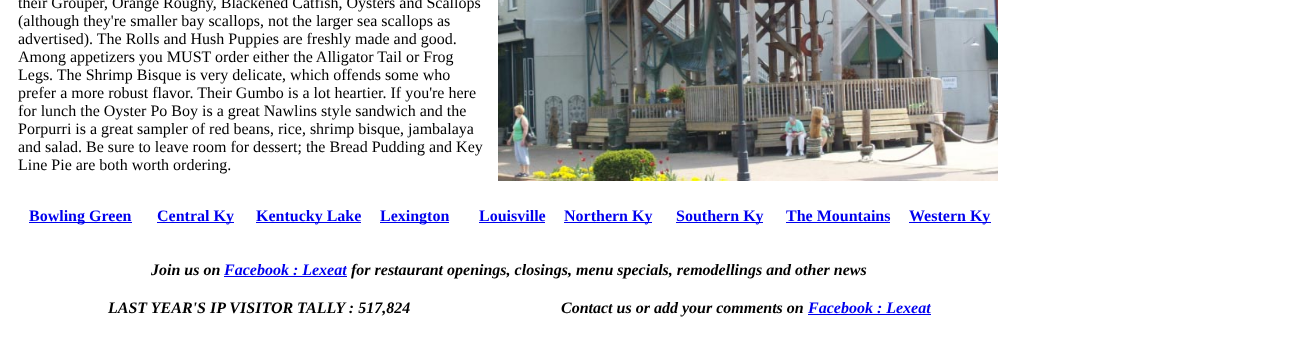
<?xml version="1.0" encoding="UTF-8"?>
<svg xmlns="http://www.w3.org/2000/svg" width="1300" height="345">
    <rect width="100%" height="100%" fill="#FFFFFF"/>
    <text font-family="Liberation Serif" font-size="16" fill="#000000">
        <tspan x="18" y="8">their Grouper, Orange Roughy, Blackened Catfish, Oysters and Scallops</tspan>
        <tspan x="18" y="26">(although they're smaller bay scallops, not the larger sea scallops as</tspan>
        <tspan x="18" y="44">advertised). The Rolls and Hush Puppies are freshly made and good.</tspan>
        <tspan x="18" y="62">Among appetizers you MUST order either the Alligator Tail or Frog</tspan>
        <tspan x="18" y="80">Legs. The Shrimp Bisque is very delicate, which offends some who</tspan>
        <tspan x="18" y="98">prefer a more robust flavor. Their Gumbo is a lot heartier. If you're here</tspan>
        <tspan x="18" y="116">for lunch the Oyster Po Boy is a great Nawlins style sandwich and the</tspan>
        <tspan x="18" y="134">Porpurri is a great sampler of red beans, rice, shrimp bisque, jambalaya</tspan>
        <tspan x="18" y="152">and salad. Be sure to leave room for dessert; the Bread Pudding and Key</tspan>
        <tspan x="18" y="170">Line Pie are both worth ordering.</tspan>
    </text>
    <image x="498" y="0" width="500" height="181" href="img_01.png"/>
    <rect x="29" y="222" width="103" height="1" fill="#0000EE"/>
    <text x="29" y="221" font-family="Liberation Serif" font-size="16" font-weight="700" fill="#0000EE">Bowling Green</text>
    <rect x="157" y="222" width="77" height="1" fill="#0000EE"/>
    <text x="157" y="221" font-family="Liberation Serif" font-size="16" font-weight="700" fill="#0000EE">Central Ky</text>
    <rect x="256" y="222" width="105" height="1" fill="#0000EE"/>
    <text x="256" y="221" font-family="Liberation Serif" font-size="16" font-weight="700" fill="#0000EE">Kentucky Lake</text>
    <rect x="380" y="222" width="69" height="1" fill="#0000EE"/>
    <text x="380" y="221" font-family="Liberation Serif" font-size="16" font-weight="700" fill="#0000EE">Lexington</text>
    <text x="479" y="221" font-family="Liberation Serif" font-size="16" font-weight="700" fill="#0000EE">Louisville</text>
    <rect x="479" y="222" width="66" height="1" fill="#0000EE"/>
    <rect x="564" y="222" width="88" height="1" fill="#0000EE"/>
    <text x="564" y="221" font-family="Liberation Serif" font-size="16" font-weight="700" fill="#0000EE">Northern Ky</text>
    <rect x="676" y="222" width="87" height="1" fill="#0000EE"/>
    <text x="676" y="221" font-family="Liberation Serif" font-size="16" font-weight="700" fill="#0000EE">Southern Ky</text>
    <text x="786" y="221" font-family="Liberation Serif" font-size="16" font-weight="700" fill="#0000EE">The Mountains</text>
    <rect x="786" y="222" width="104" height="1" fill="#0000EE"/>
    <rect x="909" y="222" width="82" height="1" fill="#0000EE"/>
    <text x="909" y="221" font-family="Liberation Serif" font-size="16" font-weight="700" fill="#0000EE">Western Ky</text>
    <text x="151" y="275" font-family="Liberation Serif" font-size="16" font-weight="700" font-style="italic" fill="#000000">Join us on</text>
    <text x="224" y="275" font-family="Liberation Serif" font-size="16" font-weight="700" font-style="italic" fill="#0000EE">Facebook : Lexeat</text>
    <rect x="224" y="276" width="123" height="1" fill="#0000EE"/>
    <text x="351" y="275" font-family="Liberation Serif" font-size="16" font-weight="700" font-style="italic" fill="#000000">for restaurant openings, closings, menu specials, remodellings and other news</text>
    <text x="108" y="313" font-family="Liberation Serif" font-size="16" font-weight="700" font-style="italic" fill="#000000">LAST YEAR'S IP VISITOR TALLY : 517,824</text>
    <text x="561" y="313" font-family="Liberation Serif" font-size="16" font-weight="700" font-style="italic" fill="#000000">Contact us or add your comments on</text>
    <text x="808" y="313" font-family="Liberation Serif" font-size="16" font-weight="700" font-style="italic" fill="#0000EE">Facebook : Lexeat</text>
    <rect x="808" y="314" width="123" height="1" fill="#0000EE"/>
</svg>
